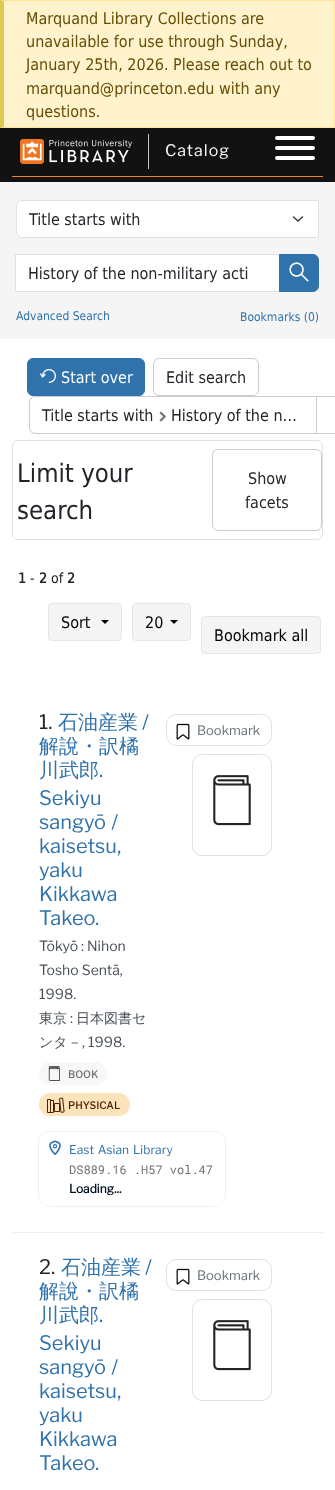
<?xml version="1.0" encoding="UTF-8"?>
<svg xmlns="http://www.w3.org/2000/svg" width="335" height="1490">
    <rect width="100%" height="100%" fill="#F5F5F5"/>
    <rect x="4" y="1" width="330" height="126" fill="#FFF3CD"/>
    <path d="M 0 0 H 335 L 334 1 H 4 Z" fill="#FFE69C"/>
    <rect x="334" y="0" width="1" height="128" fill="#FFE69C"/>
    <path d="M 335 128 H 0 L 4 127 H 334 Z" fill="#FFE69C"/>
    <path d="M 0 128 V 0 L 4 1 V 127 Z" fill="#E0CB52"/>
    <text font-family="DejaVu Sans" font-size="16" fill="#664D03">
        <tspan x="26" y="24">Marquand Library Collections are</tspan>
        <tspan x="26" y="47">unavailable for use through Sunday,</tspan>
        <tspan x="26" y="70">January 25th, 2026. Please reach out to</tspan>
        <tspan x="26" y="94">marquand@princeton.edu with any</tspan>
        <tspan x="26" y="117">questions.</tspan>
    </text>
    <rect x="0" y="128" width="335" height="54" fill="#121212"/>
    <rect x="12" y="176" width="311" height="1" fill="#F58025"/>
    <image x="20" y="139" width="112" height="25" href="img_01.png"/>
    <rect x="148" y="134" width="1" height="35" fill="#C5C8CE"/>
    <text x="165" y="156" font-family="Libre Franklin" font-size="16" letter-spacing="1" fill="#FFFFFF">Catalog</text>
    <rect x="275" y="146" width="40" height="4" rx="2" fill="#FFFFFF"/>
    <rect x="275" y="136" width="40" height="4" rx="2" fill="#FFFFFF"/>
    <rect x="275" y="156" width="40" height="4" rx="2" fill="#FFFFFF"/>
    <path d="M 22 200 H 319 V 238 H 22 C 18.5 238 16 235.5 16 232 V 206 C 16 202.5 18.5 200 22 200 Z" fill="#FFFFFF"/>
    <path d="M 293.5 217 L 298 221 L 302.5 217" fill="none" stroke="#343A40" stroke-width="1.5" stroke-linecap="round" stroke-linejoin="round"/>
    <path d="M 22 200.5 H 318.5 V 237.5 H 22 C 19 237.5 16.5 235 16.5 232 V 206 C 16.5 203 19 200.5 22 200.5 Z" fill="none" stroke="#DEE2E6"/>
    <text x="29" y="225" font-family="DejaVu Sans" font-size="16" fill="#212529">Title starts with</text>
    <rect x="15.5" y="254.5" width="264" height="37" fill="#FFFFFF" stroke="#DEE2E6"/>
    <text x="28" y="279" font-family="DejaVu Sans" font-size="16" fill="#212529">History of the non-military acti</text>
    <path d="M 279.5 254.5 H 313 C 316 254.5 318.5 257 318.5 260 V 286 C 318.5 289 316 291.5 313 291.5 H 279.5 Z" fill="#3072AB" stroke="#3072AB"/>
    <image x="289" y="262" width="20" height="20" href="img_02.png"/>
    <text x="16" y="320" font-family="DejaVu Sans" font-size="12" fill="#3072AB">Advanced Search</text>
    <text x="240" y="321" font-family="DejaVu Sans" font-size="12" fill="#3072AB">Bookmarks (0)</text>
    <rect x="0" y="339" width="335" height="1151" fill="#FFFFFF"/>
    <rect x="27.5" y="358.5" width="117" height="37" rx="5.5" fill="#3072AB" stroke="#3072AB"/>
    <image x="40" y="369" width="16" height="14" href="img_03.png"/>
    <text x="61" y="383" font-family="DejaVu Sans" font-size="16" fill="#FFFFFF">Start over</text>
    <rect x="153.5" y="358.5" width="105" height="37" rx="5.5" fill="none" stroke="#CCCCCC"/>
    <text x="166" y="383" font-family="DejaVu Sans" font-size="16" fill="#212529">Edit search</text>
    <path d="M 35 396.5 H 316.5 V 433.5 H 35 C 32 433.5 29.5 431 29.5 428 V 402 C 29.5 399 32 396.5 35 396.5 Z" fill="none" stroke="#CCCCCC"/>
    <text x="42" y="421" font-family="DejaVu Sans" font-size="16" fill="#212529">Title starts with</text>
    <image x="159" y="411" width="7" height="11" href="img_04.png"/>
    <text x="171" y="421" font-family="DejaVu Sans" font-size="16" fill="#212529">History of the n…</text>
    <rect x="316.5" y="396.5" width="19" height="37" fill="none" stroke="#CCCCCC"/>
    <rect x="12.5" y="440.5" width="310" height="99" rx="5.5" fill="none" stroke="#DEE2E6"/>
    <text font-family="DejaVu Sans" font-size="25.5" fill="#212529">
        <tspan x="17" y="482">Limit your</tspan>
        <tspan x="17" y="519">search</tspan>
    </text>
    <rect x="212.5" y="449.5" width="109" height="81" rx="5.5" fill="none" stroke="#CCCCCC"/>
    <text x="248" y="484" font-family="DejaVu Sans" font-size="16" fill="#212529">Show</text>
    <text x="245" y="508" font-family="DejaVu Sans" font-size="16" fill="#212529">facets</text>
    <text x="18" y="583" font-family="DejaVu Sans" font-size="14" font-weight="700" fill="#212529">1</text>
    <text x="30" y="583" font-family="DejaVu Sans" font-size="14" fill="#212529">-</text>
    <text x="39" y="583" font-family="DejaVu Sans" font-size="14" font-weight="700" fill="#212529">2</text>
    <text x="51" y="583" font-family="DejaVu Sans" font-size="14" fill="#212529">of</text>
    <text x="67" y="583" font-family="DejaVu Sans" font-size="14" font-weight="700" fill="#212529">2</text>
    <rect x="48.5" y="603.5" width="73" height="37" rx="3.5" fill="#F5F5F5" stroke="#E8E6DF"/>
    <text x="61" y="628" font-family="DejaVu Sans" font-size="16" fill="#000000">Sort</text>
    <path d="M 101 620 H 109 L 105 624 Z" fill="#000000"/>
    <rect x="132.5" y="603.5" width="58" height="37" rx="3.5" fill="#F5F5F5" stroke="#E8E6DF"/>
    <text x="145" y="628" font-family="DejaVu Sans" font-size="16" fill="#000000">20</text>
    <path d="M 170 620 H 178 L 174 624 Z" fill="#000000"/>
    <rect x="201.5" y="616.5" width="119" height="37" rx="3.5" fill="#F5F5F5" stroke="#E8E6DF"/>
    <text x="214" y="641" font-family="DejaVu Sans" font-size="16" fill="#000000">Bookmark all</text>
    <path d="M 12 1232.5 H 323" fill="none" stroke="#DEE2E6" stroke-dasharray="1 1"/>
    <text x="39" y="729" font-family="Libre Franklin" font-size="20" fill="#212529">1.</text>
    <text x="58" y="729" font-family="WenQuanYi Zen Hei" font-size="20" font-weight="500" fill="#3072AB">石油産業</text>
    <text x="142" y="729" font-family="Libre Franklin" font-size="20" fill="#3072AB">/</text>
    <text font-family="WenQuanYi Zen Hei" font-size="20" font-weight="500" fill="#3072AB">
        <tspan x="39" y="753">解說・訳橘</tspan>
        <tspan x="39" y="777">川武郎</tspan>
    </text>
    <text x="99" y="777" font-family="Libre Franklin" font-size="20" fill="#3072AB">.</text>
    <text font-family="Libre Franklin" font-size="20" fill="#3072AB">
        <tspan x="39" y="805">Sekiyu</tspan>
        <tspan x="39" y="829" word-spacing="1">sangyō /</tspan>
        <tspan x="39" y="853">kaisetsu,</tspan>
        <tspan x="39" y="877">yaku</tspan>
        <tspan x="39" y="901">Kikkawa</tspan>
        <tspan x="39" y="925">Takeo.</tspan>
    </text>
    <text font-family="Libre Franklin" font-size="14" fill="#494F57">
        <tspan x="39" y="951">Tōkyō : Nihon</tspan>
        <tspan x="39" y="975">Tosho Sentā,</tspan>
        <tspan x="39" y="999">1998.</tspan>
    </text>
    <text x="39" y="1023" font-family="WenQuanYi Zen Hei" font-size="14" font-weight="500" fill="#494F57">東京</text>
    <text x="70" y="1023" font-family="Libre Franklin" font-size="14" fill="#494F57">:</text>
    <text x="76" y="1023" font-family="WenQuanYi Zen Hei" font-size="14" font-weight="500" fill="#494F57">日本図書セ</text>
    <text x="39" y="1047" font-family="WenQuanYi Zen Hei" font-size="14" font-weight="500" fill="#494F57">ンタ－</text>
    <text x="82" y="1047" font-family="Libre Franklin" font-size="14" fill="#494F57">, 1998.</text>
    <rect x="39" y="1062" width="68" height="23" rx="11.5" fill="#F7F7F7"/>
    <image x="48" y="1066" width="12" height="15" href="img_05.png"/>
    <text x="68" y="1078" font-family="Libre Franklin" font-size="10" font-weight="700" letter-spacing="0.25" fill="#717171">BOOK</text>
    <rect x="39" y="1093" width="91" height="23" rx="11.5" fill="#FBE3BB"/>
    <image x="47" y="1097" width="18" height="16" href="img_06.png"/>
    <text x="68" y="1109" font-family="Libre Franklin" font-size="10" font-weight="700" letter-spacing="0.25" fill="#4F2000">PHYSICAL</text>
    <rect x="38.5" y="1131.5" width="187" height="75" rx="10.5" fill="none" stroke="#EFF0F9"/>
    <rect x="39" y="1132" width="186" height="74" rx="10" fill="#FFFFFF"/>
    <image x="49" y="1140" width="12" height="15" href="img_07.png"/>
    <text x="69" y="1154" word-spacing="1" font-family="Libre Franklin" font-size="12" letter-spacing="0.1" fill="#3072AB">East Asian Library</text>
    <text x="69" y="1174" font-family="Roboto Mono" font-size="12" fill="#717171">DS889.16 .H57 vol.47</text>
    <text x="69" y="1193" font-family="Libre Franklin" font-size="12" font-weight="700" fill="#001123">Loading...</text>
    <rect x="166.5" y="714.5" width="105" height="31" rx="9.5" fill="none" stroke="#E1E1E1"/>
    <image x="176" y="723" width="14" height="17" href="img_08.png"/>
    <text x="197" y="735" font-family="Libre Franklin" font-size="13" fill="#6B7380">Bookmark</text>
    <rect x="192.5" y="754.5" width="79" height="101" rx="9.5" fill="none" stroke="#E1E1E1"/>
    <image x="213" y="775" width="38" height="51" href="img_09.png"/>
    <text x="39" y="1274" font-family="Libre Franklin" font-size="20" fill="#212529">2.</text>
    <text x="61" y="1274" font-family="WenQuanYi Zen Hei" font-size="20" font-weight="500" fill="#3072AB">石油産業</text>
    <text x="145" y="1274" font-family="Libre Franklin" font-size="20" fill="#3072AB">/</text>
    <text font-family="WenQuanYi Zen Hei" font-size="20" font-weight="500" fill="#3072AB">
        <tspan x="39" y="1298">解說・訳橘</tspan>
        <tspan x="39" y="1322">川武郎</tspan>
    </text>
    <text x="99" y="1322" font-family="Libre Franklin" font-size="20" fill="#3072AB">.</text>
    <text font-family="Libre Franklin" font-size="20" fill="#3072AB">
        <tspan x="39" y="1350">Sekiyu</tspan>
        <tspan x="39" y="1374" word-spacing="1">sangyō /</tspan>
        <tspan x="39" y="1398">kaisetsu,</tspan>
        <tspan x="39" y="1422">yaku</tspan>
        <tspan x="39" y="1446">Kikkawa</tspan>
        <tspan x="39" y="1470">Takeo.</tspan>
    </text>
    <rect x="166.5" y="1259.5" width="105" height="31" rx="9.5" fill="none" stroke="#E1E1E1"/>
    <image x="176" y="1268" width="14" height="17" href="img_08.png"/>
    <text x="197" y="1280" font-family="Libre Franklin" font-size="13" fill="#6B7380">Bookmark</text>
    <rect x="192.5" y="1299.5" width="79" height="101" rx="9.5" fill="none" stroke="#E1E1E1"/>
    <image x="213" y="1320" width="38" height="51" href="img_09.png"/>
</svg>
